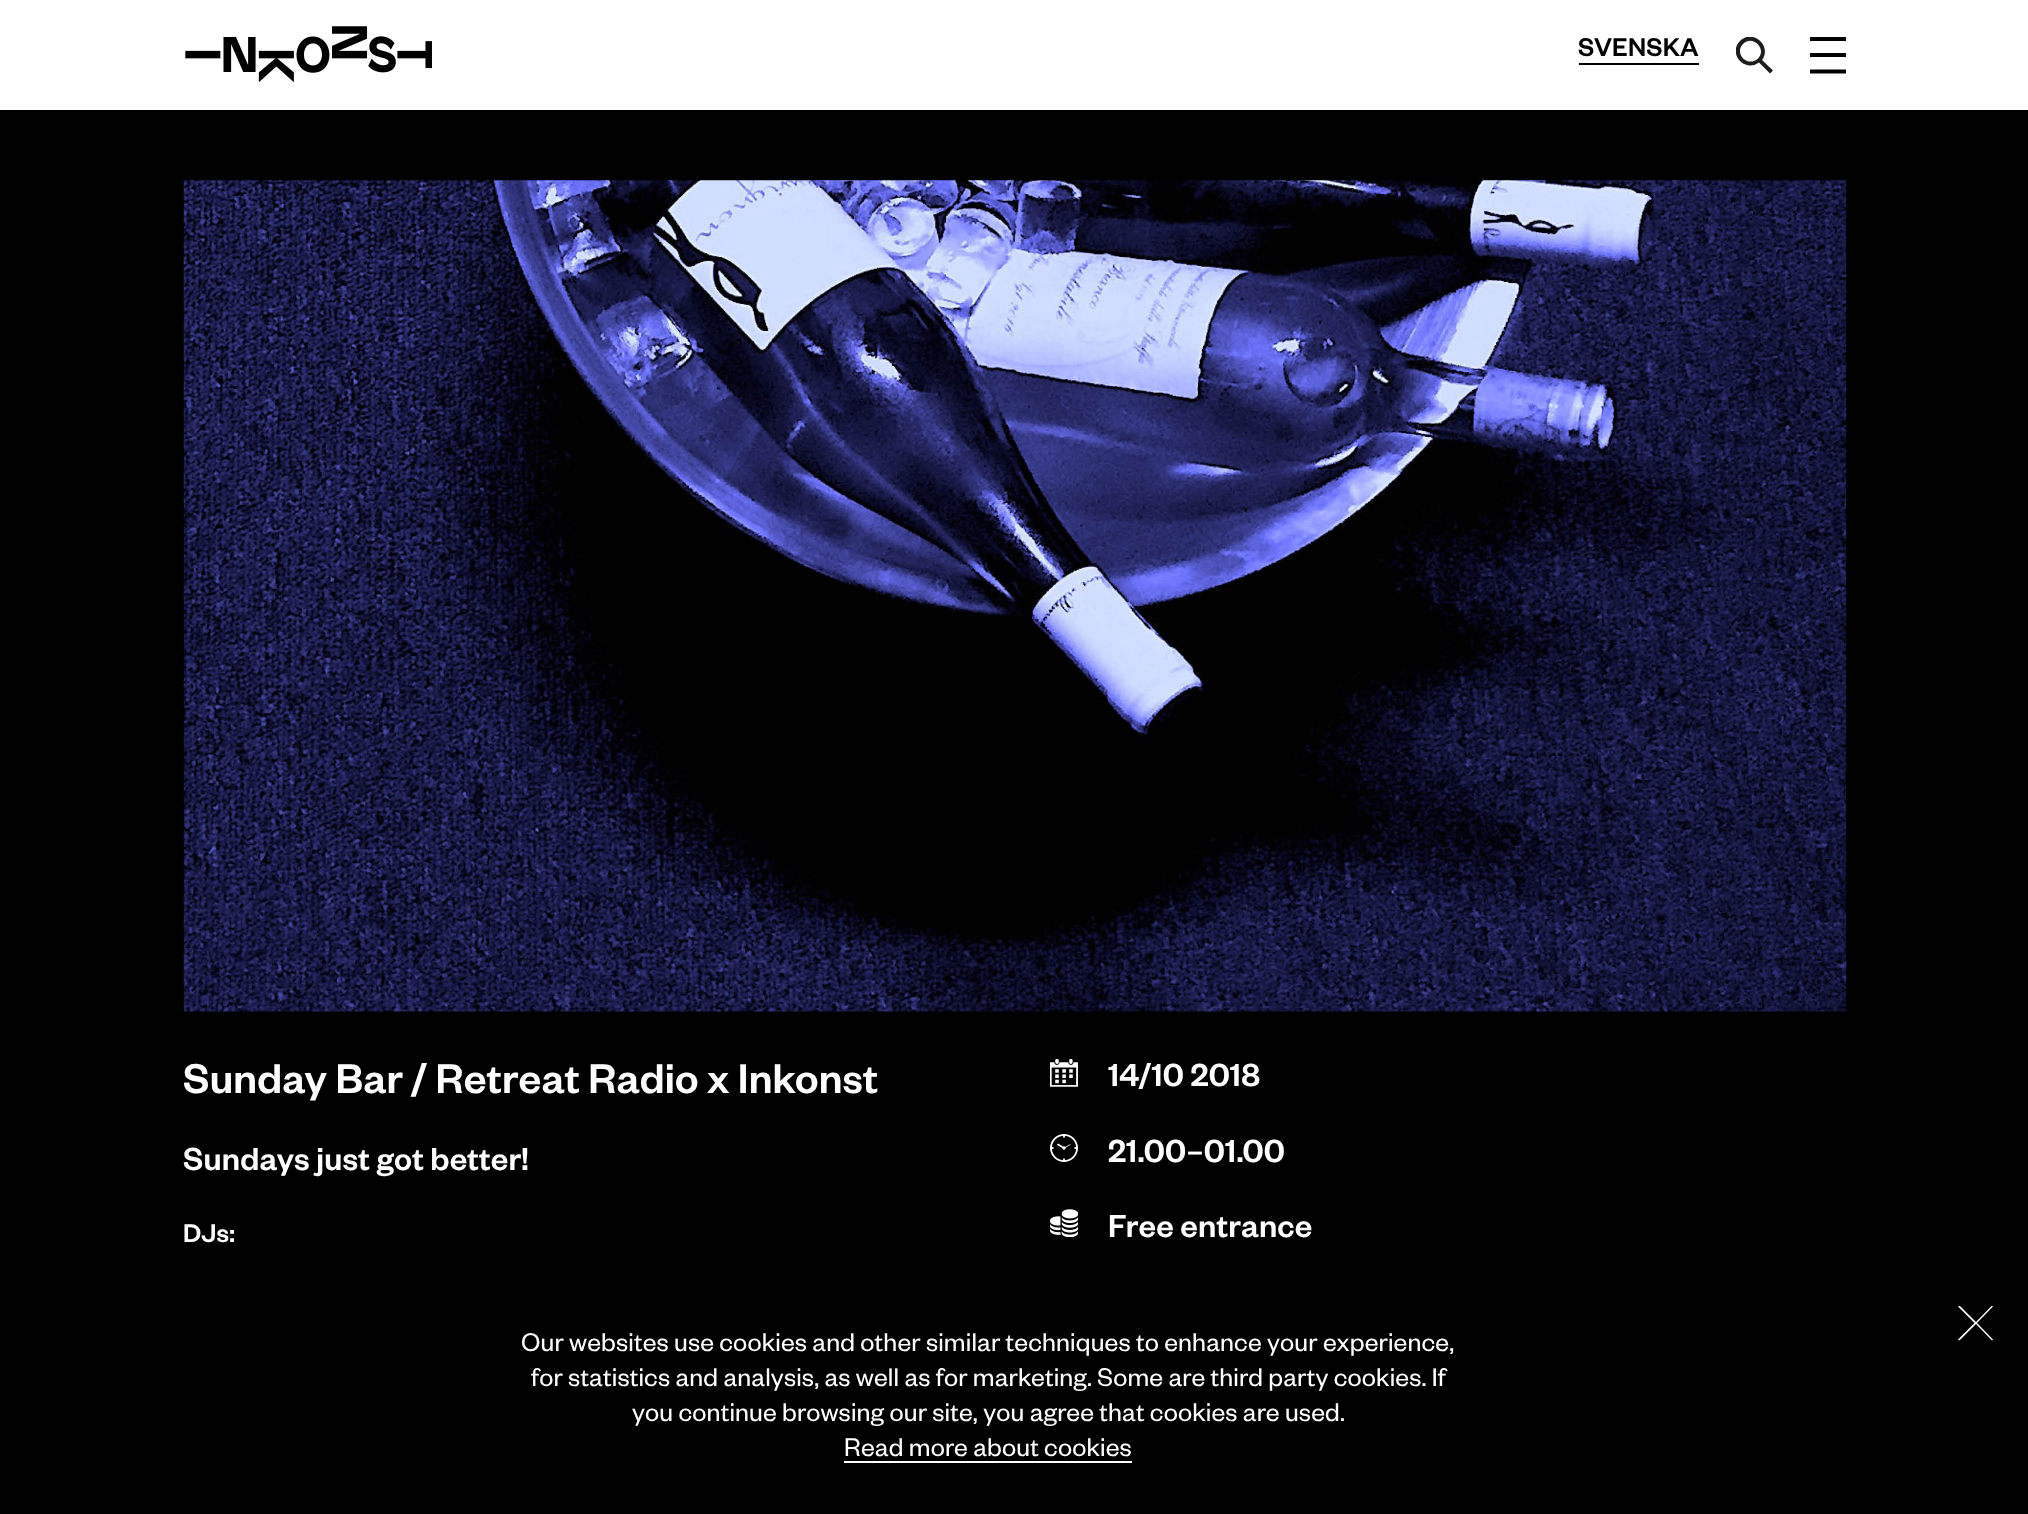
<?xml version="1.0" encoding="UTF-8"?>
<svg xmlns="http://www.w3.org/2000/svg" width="2028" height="1514">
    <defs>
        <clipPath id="clip1"><rect x="1736" y="37" width="37" height="37"/></clipPath>
        <clipPath id="clip2"><rect x="1810" y="37" width="36" height="37"/></clipPath>
        <clipPath id="clip3"><rect x="1958" y="1306" width="35" height="35"/></clipPath>
    </defs>
    <rect width="100%" height="100%" fill="#000000"/>
    <rect x="0" y="0" width="2028" height="110" fill="#FFFFFF"/>
    <image x="185" y="26" width="247" height="56" href="img_01.png"/>
    <text x="1578" y="56" font-family="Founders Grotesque" font-size="28" font-weight="500" letter-spacing="0.18" fill="#000000">SVENSKA</text>
    <rect x="1579" y="63" width="120" height="2" fill="#000000"/>
    <g clip-path="url(#clip1)">
        <path d="M 1758 58.5 C 1748 68 1733.5 53.5 1743 44 C 1752.5 34 1767.5 49 1758 58.5 M 1740 41 C 1727.5 53.5 1745 73 1759 62.5 L 1770 73.5 L 1773 70.5 L 1762 60 C 1772.5 45.5 1752.5 28.5 1740 41" fill="#1D1D1B"/>
    </g>
    <g clip-path="url(#clip2)">
        <path d="M 1809.5 53 H 1846 V 57 H 1809.5 Z M 1809.5 37 H 1846 V 41 H 1809.5 Z M 1809.5 69.5 H 1846 V 73.5 H 1809.5 Z" fill="#000000"/>
    </g>
    <image x="183" y="180" width="1664" height="832" href="img_02.png"/>
    <text x="183" y="1093" font-family="Founders Grotesque" font-size="45.5" font-weight="500" letter-spacing="0.18" fill="#FFFFFF">Sunday Bar / Retreat Radio x Inkonst</text>
    <text x="183" y="1170" font-family="Founders Grotesque" font-size="35" font-weight="500" letter-spacing="0.18" fill="#FFFFFF">Sundays just got better!</text>
    <text x="183" y="1242" font-family="Founders Grotesque" font-size="28" font-weight="500" letter-spacing="0.18" fill="#FFFFFF">DJs:</text>
    <image x="1050" y="1059" width="28" height="28" href="img_03.png"/>
    <text x="1108" y="1086" font-family="Founders Grotesque" font-size="35" font-weight="500" letter-spacing="0.18" fill="#FFFFFF">14/10 2018</text>
    <image x="1050" y="1134" width="28" height="28" href="img_04.png"/>
    <text x="1108" y="1162" font-family="Founders Grotesque" font-size="35" font-weight="500" letter-spacing="0.18" fill="#FFFFFF">21.00–01.00</text>
    <image x="1050" y="1209" width="28" height="28" href="img_05.png"/>
    <text x="1108" y="1237" font-family="Founders Grotesque" font-size="35" font-weight="500" letter-spacing="0.18" fill="#FFFFFF">Free entrance</text>
    <g clip-path="url(#clip3)">
        <path d="M 1993 1306.5 L 1992 1305.5 L 1976 1322 L 1959.5 1305.5 L 1958 1306.5 L 1974.5 1323 L 1958 1339.5 L 1959.5 1340.5 L 1976 1324 L 1992 1340.5 L 1993 1339.5 L 1977 1323 Z" fill="#FFFFFF"/>
    </g>
    <text x="521" y="1351" font-family="Founders Grotesque" font-size="28" letter-spacing="0.18" fill="#FFFFFF">Our websites use cookies and other similar techniques to enhance your experience,</text>
    <text x="531" y="1386" font-family="Founders Grotesque" font-size="28" letter-spacing="0.18" fill="#FFFFFF">for statistics and analysis, as well as for marketing. Some are third party cookies. If</text>
    <text x="632" y="1421" font-family="Founders Grotesque" font-size="28" letter-spacing="0.18" fill="#FFFFFF">you continue browsing our site, you agree that cookies are used.</text>
    <text x="844" y="1456" font-family="Founders Grotesque" font-size="28" letter-spacing="0.18" fill="#FFFFFF">Read more about cookies</text>
    <rect x="844" y="1461" width="288" height="2" fill="#FFFFFF"/>
</svg>
